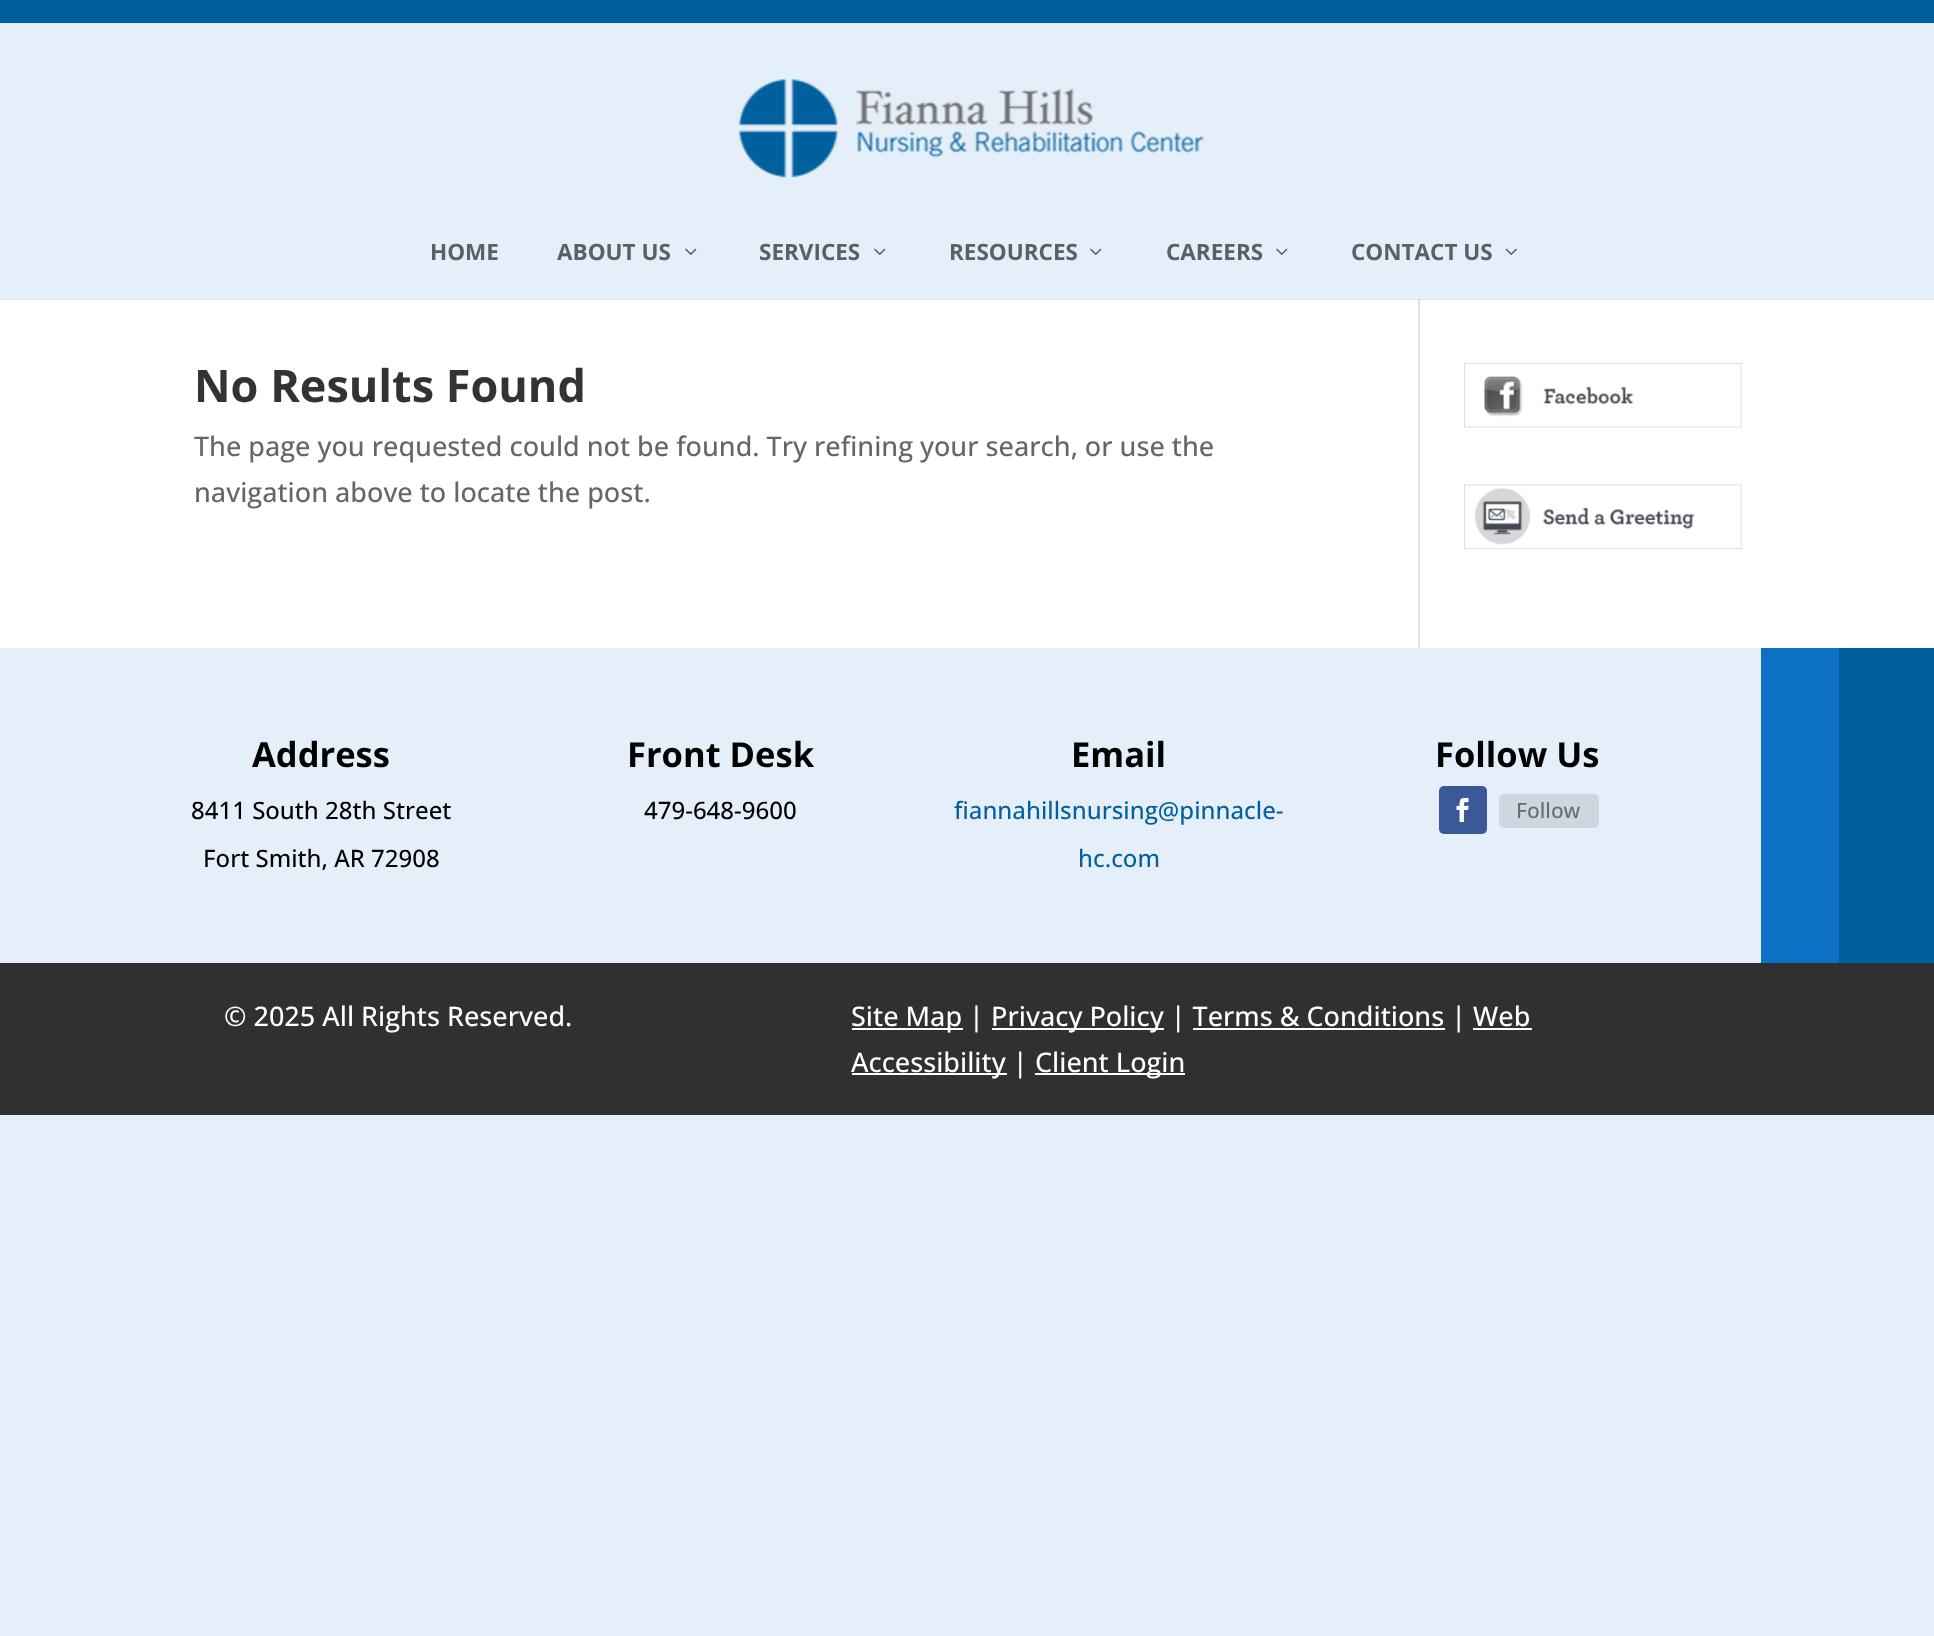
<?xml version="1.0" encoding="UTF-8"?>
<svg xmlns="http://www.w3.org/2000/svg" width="1934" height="1636">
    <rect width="100%" height="100%" fill="#E5EFF9"/>
    <rect x="0" y="0" width="1934" height="23" fill="#00609F"/>
    <image x="738" y="79" width="466" height="99" href="img_01.png"/>
    <text x="430" y="260" font-family="Open Sans" font-size="22.5" font-weight="700" fill="#5C6064">HOME</text>
    <text x="557" y="260" font-family="Open Sans" font-size="22.5" font-weight="700" fill="#5C6064">ABOUT US</text>
    <image x="685" y="248" width="12" height="7" href="img_02.png"/>
    <text x="759" y="260" font-family="Open Sans" font-size="22.5" font-weight="700" fill="#5C6064">SERVICES</text>
    <image x="874" y="248" width="12" height="7" href="img_02.png"/>
    <text x="949" y="260" font-family="Open Sans" font-size="22.5" font-weight="700" fill="#5C6064">RESOURCES</text>
    <image x="1090" y="248" width="12" height="7" href="img_02.png"/>
    <text x="1166" y="260" font-family="Open Sans" font-size="22.5" font-weight="700" fill="#5C6064">CAREERS</text>
    <image x="1276" y="248" width="12" height="7" href="img_02.png"/>
    <text x="1351" y="260" font-family="Open Sans" font-size="22.5" font-weight="700" fill="#5C6064">CONTACT US</text>
    <image x="1505" y="248" width="12" height="7" href="img_03.png"/>
    <rect x="0" y="300" width="1934" height="348" fill="#FFFFFF"/>
    <rect x="0" y="299" width="1934" height="1" fill="#E6E6E6"/>
    <text x="194" y="402" font-family="Open Sans" font-size="45" font-weight="700" fill="#333333">No Results Found</text>
    <text font-family="Open Sans" font-size="27" font-weight="500" fill="#666666">
        <tspan x="194" y="456">The page you requested could not be found. Try refining your search, or use the</tspan>
        <tspan x="194" y="502">navigation above to locate the post.</tspan>
    </text>
    <image x="1464" y="363" width="278" height="65" href="img_04.png"/>
    <image x="1464" y="484" width="278" height="65" href="img_05.png"/>
    <rect x="1418" y="300" width="2" height="348" fill="#E2E2E2"/>
    <rect x="1418" y="299" width="2" height="1" fill="#CBCBCB"/>
    <rect x="1761" y="648" width="78" height="315" fill="#0C71C3"/>
    <rect x="1839" y="648" width="95" height="315" fill="#00609F"/>
    <text x="252" y="767" font-family="Open Sans" font-size="34.5" font-weight="700" fill="#000000">Address</text>
    <text x="191" y="819" font-family="Open Sans" font-size="24" font-weight="500" fill="#000000">8411 South 28th Street</text>
    <text x="203" y="867" font-family="Open Sans" font-size="24" font-weight="500" fill="#000000">Fort Smith, AR 72908</text>
    <text x="627" y="767" font-family="Open Sans" font-size="34.5" font-weight="700" fill="#000000">Front Desk</text>
    <text x="644" y="819" font-family="Open Sans" font-size="24" font-weight="500" fill="#000000">479-648-9600</text>
    <text x="1071" y="767" font-family="Open Sans" font-size="34.5" font-weight="700" fill="#000000">Email</text>
    <text x="954" y="819" font-family="Open Sans" font-size="24" font-weight="500" fill="#035F9E">fiannahillsnursing@pinnacle-</text>
    <text x="1078" y="867" font-family="Open Sans" font-size="24" font-weight="500" fill="#035F9E">hc.com</text>
    <text x="1435" y="767" font-family="Open Sans" font-size="34.5" font-weight="700" fill="#000000">Follow Us</text>
    <rect x="1439" y="786" width="48" height="48" rx="5" fill="#3B5998"/>
    <image x="1456" y="798" width="13" height="24" href="img_06.png"/>
    <rect x="1499" y="794" width="100" height="34" rx="5" fill="#CED7E0"/>
    <text x="1516" y="818" font-family="Open Sans" font-size="21" font-weight="500" fill="#676C70">Follow</text>
    <rect x="0" y="963" width="1934" height="152" fill="#303030"/>
    <text x="224" y="1026" font-family="Open Sans" font-size="27" font-weight="500" fill="#FFFFFF">© 2025 All Rights Reserved.</text>
    <rect x="852" y="1028" width="111" height="2" fill="#FFFFFF"/>
    <text x="851" y="1026" font-family="Open Sans" font-size="27" font-weight="500" fill="#FFFFFF">Site Map |</text>
    <rect x="992" y="1028" width="172" height="2" fill="#FFFFFF"/>
    <text x="991" y="1026" font-family="Open Sans" font-size="27" font-weight="500" fill="#FFFFFF">Privacy Policy | Terms &amp; Conditions | Web</text>
    <rect x="1193" y="1028" width="252" height="2" fill="#FFFFFF"/>
    <rect x="852" y="1073" width="155" height="2" fill="#FFFFFF"/>
    <text x="851" y="1072" font-family="Open Sans" font-size="27" font-weight="500" fill="#FFFFFF">Accessibility |</text>
    <rect x="1473" y="1028" width="59" height="2" fill="#FFFFFF"/>
    <rect x="1035" y="1073" width="150" height="2" fill="#FFFFFF"/>
    <text x="1035" y="1072" font-family="Open Sans" font-size="27" font-weight="500" fill="#FFFFFF">Client Login</text>
</svg>
